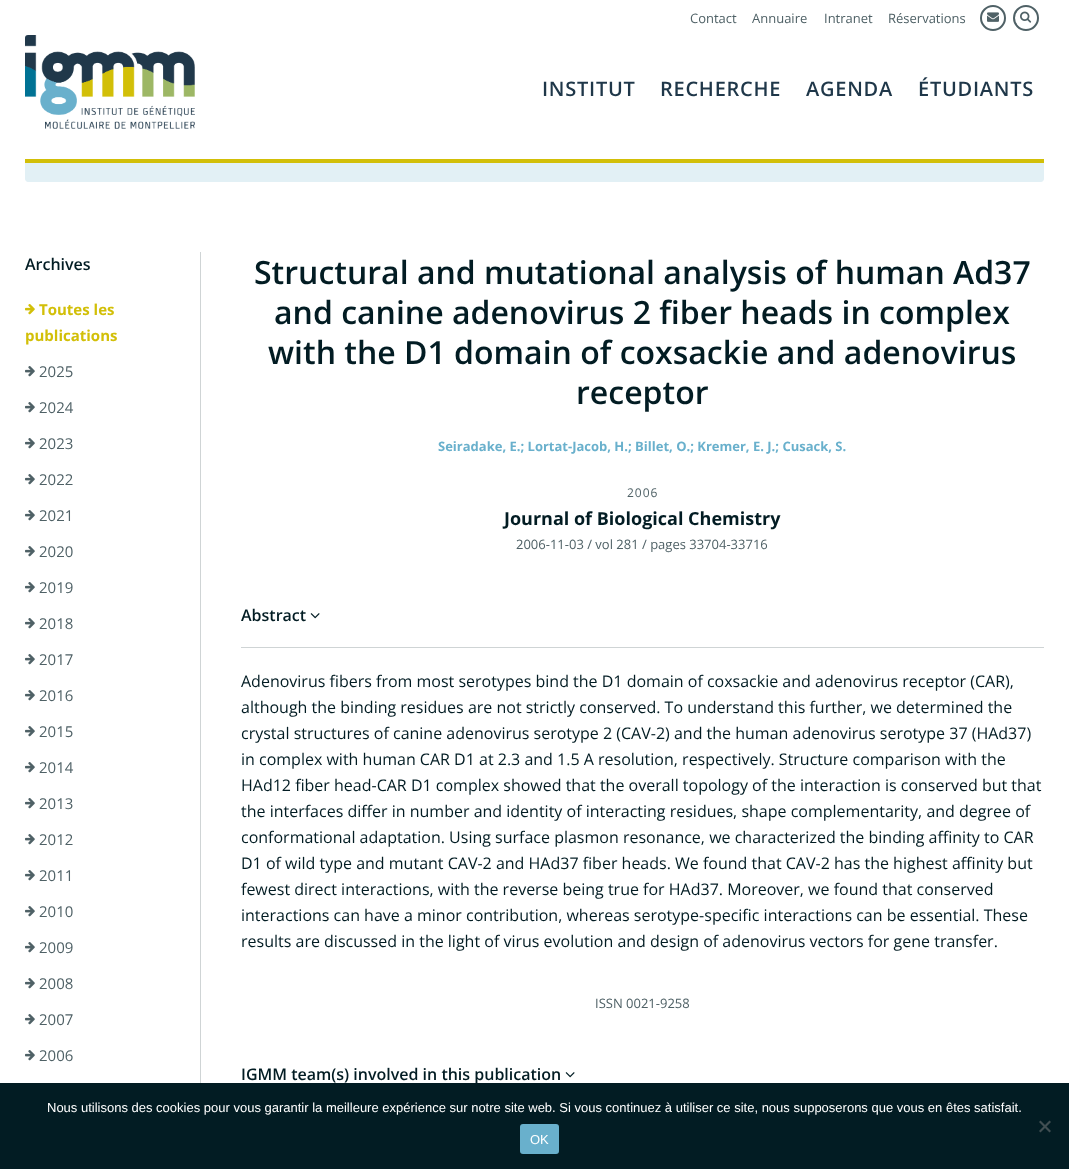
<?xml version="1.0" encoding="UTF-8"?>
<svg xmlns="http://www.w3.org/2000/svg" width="1069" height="1169">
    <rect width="100%" height="100%" fill="#FFFFFF"/>
    <image x="25" y="35" width="170" height="94" href="img_01.png"/>
    <text x="690" y="23" font-family="Open Sans" font-size="13" fill="#4F6166">Contact</text>
    <text x="752" y="23" font-family="Open Sans" font-size="13" fill="#4F6166">Annuaire</text>
    <text x="824" y="23" font-family="Open Sans" font-size="13" fill="#4F6166">Intranet</text>
    <text x="888" y="23" font-family="Open Sans" font-size="13" fill="#4F6166">Réservations</text>
    <circle cx="993" cy="18" r="12" fill="none" stroke="#4F6166" stroke-width="2"/>
    <image x="987" y="12" width="12" height="10" href="img_02.png"/>
    <circle cx="1026" cy="18" r="12" fill="none" stroke="#4F6166" stroke-width="2"/>
    <image x="1020" y="11" width="12" height="12" href="img_03.png"/>
    <text x="542" y="96" font-family="Open Sans" font-size="20" font-weight="600" letter-spacing="0.75" fill="#1F3749">INSTITUT</text>
    <text x="660" y="96" font-family="Open Sans" font-size="20" font-weight="600" letter-spacing="0.75" fill="#1F3749">RECHERCHE</text>
    <text x="806" y="96" font-family="Open Sans" font-size="20" font-weight="600" letter-spacing="0.75" fill="#1F3749">AGENDA</text>
    <text x="918" y="96" font-family="Open Sans" font-size="20" font-weight="600" letter-spacing="0.75" fill="#1F3749">ÉTUDIANTS</text>
    <rect x="25" y="159" width="1019" height="4" fill="#D2BF08"/>
    <path d="M 25 163 H 1044 V 179 C 1044 180.5 1042.5 182 1041 182 H 28 C 26.5 182 25 180.5 25 179 Z" fill="#E2F0F5"/>
    <text x="25" y="270" font-family="Open Sans" font-size="16" font-weight="600" fill="#021C23">Archives</text>
    <rect x="200" y="252" width="1" height="831" fill="#CFD4D5"/>
    <image x="25" y="304" width="10" height="11" href="img_04.png"/>
    <text x="39" y="315" font-family="Open Sans" font-size="15" font-weight="700" fill="#D2BF08">Toutes les</text>
    <text x="25" y="341" font-family="Open Sans" font-size="15" font-weight="700" fill="#D2BF08">publications</text>
    <image x="25" y="366" width="10" height="11" href="img_05.png"/>
    <text x="39" y="377" font-family="Open Sans" font-size="15" fill="#4F6166">2025</text>
    <image x="25" y="402" width="10" height="11" href="img_05.png"/>
    <text x="39" y="413" font-family="Open Sans" font-size="15" fill="#4F6166">2024</text>
    <image x="25" y="438" width="10" height="11" href="img_05.png"/>
    <text x="39" y="449" font-family="Open Sans" font-size="15" fill="#4F6166">2023</text>
    <image x="25" y="474" width="10" height="11" href="img_05.png"/>
    <text x="39" y="485" font-family="Open Sans" font-size="15" fill="#4F6166">2022</text>
    <image x="25" y="510" width="10" height="11" href="img_05.png"/>
    <text x="39" y="521" font-family="Open Sans" font-size="15" fill="#4F6166">2021</text>
    <image x="25" y="546" width="10" height="11" href="img_05.png"/>
    <text x="39" y="557" font-family="Open Sans" font-size="15" fill="#4F6166">2020</text>
    <image x="25" y="582" width="10" height="11" href="img_05.png"/>
    <text x="39" y="593" font-family="Open Sans" font-size="15" fill="#4F6166">2019</text>
    <image x="25" y="618" width="10" height="11" href="img_05.png"/>
    <text x="39" y="629" font-family="Open Sans" font-size="15" fill="#4F6166">2018</text>
    <image x="25" y="654" width="10" height="11" href="img_05.png"/>
    <text x="39" y="665" font-family="Open Sans" font-size="15" fill="#4F6166">2017</text>
    <image x="25" y="690" width="10" height="11" href="img_05.png"/>
    <text x="39" y="701" font-family="Open Sans" font-size="15" fill="#4F6166">2016</text>
    <image x="25" y="726" width="10" height="11" href="img_05.png"/>
    <text x="39" y="737" font-family="Open Sans" font-size="15" fill="#4F6166">2015</text>
    <image x="25" y="762" width="10" height="11" href="img_05.png"/>
    <text x="39" y="773" font-family="Open Sans" font-size="15" fill="#4F6166">2014</text>
    <image x="25" y="798" width="10" height="11" href="img_05.png"/>
    <text x="39" y="809" font-family="Open Sans" font-size="15" fill="#4F6166">2013</text>
    <image x="25" y="834" width="10" height="11" href="img_05.png"/>
    <text x="39" y="845" font-family="Open Sans" font-size="15" fill="#4F6166">2012</text>
    <image x="25" y="870" width="10" height="11" href="img_05.png"/>
    <text x="39" y="881" font-family="Open Sans" font-size="15" fill="#4F6166">2011</text>
    <image x="25" y="906" width="10" height="11" href="img_05.png"/>
    <text x="39" y="917" font-family="Open Sans" font-size="15" fill="#4F6166">2010</text>
    <image x="25" y="942" width="10" height="11" href="img_05.png"/>
    <text x="39" y="953" font-family="Open Sans" font-size="15" fill="#4F6166">2009</text>
    <image x="25" y="978" width="10" height="11" href="img_05.png"/>
    <text x="39" y="989" font-family="Open Sans" font-size="15" fill="#4F6166">2008</text>
    <image x="25" y="1014" width="10" height="11" href="img_05.png"/>
    <text x="39" y="1025" font-family="Open Sans" font-size="15" fill="#4F6166">2007</text>
    <image x="25" y="1050" width="10" height="11" href="img_05.png"/>
    <text x="39" y="1061" font-family="Open Sans" font-size="15" fill="#4F6166">2006</text>
    <text x="254" y="284" font-family="Open Sans" font-size="32" font-weight="600" fill="#021C23">Structural and mutational analysis of human Ad37</text>
    <text x="274" y="324" font-family="Open Sans" font-size="32" font-weight="600" fill="#021C23">and canine adenovirus 2 fiber heads in complex</text>
    <text x="268" y="364" font-family="Open Sans" font-size="32" font-weight="600" fill="#021C23">with the D1 domain of coxsackie and adenovirus</text>
    <text x="576" y="404" font-family="Open Sans" font-size="32" font-weight="600" fill="#021C23">receptor</text>
    <text x="438" y="451" font-family="Open Sans" font-size="13" font-weight="700" fill="#69B0CC">Seiradake, E.; Lortat-Jacob, H.; Billet, O.; Kremer, E. J.; Cusack, S.</text>
    <text x="627" y="497" font-family="Open Sans" font-size="12" letter-spacing="1" fill="#4F6166">2006</text>
    <text x="504" y="525" font-family="Open Sans" font-size="18" font-weight="700" fill="#021C23">Journal of Biological Chemistry</text>
    <text x="516" y="549" font-family="Open Sans" font-size="13" fill="#4F6166">2006-11-03 / vol 281 / pages 33704-33716</text>
    <rect x="241" y="647" width="803" height="1" fill="#CFD4D5"/>
    <text x="241" y="621" font-family="Open Sans" font-size="16" font-weight="600" fill="#021C23">Abstract</text>
    <image x="310" y="613" width="10" height="6" href="img_06.png"/>
    <text font-family="Open Sans" font-size="16" fill="#021C23">
        <tspan x="241" y="687">Adenovirus fibers from most serotypes bind the D1 domain of coxsackie and adenovirus receptor (CAR),</tspan>
        <tspan x="241" y="713">although the binding residues are not strictly conserved. To understand this further, we determined the</tspan>
        <tspan x="241" y="739">crystal structures of canine adenovirus serotype 2 (CAV-2) and the human adenovirus serotype 37 (HAd37)</tspan>
        <tspan x="241" y="765">in complex with human CAR D1 at 2.3 and 1.5 A resolution, respectively. Structure comparison with the</tspan>
        <tspan x="241" y="791">HAd12 fiber head-CAR D1 complex showed that the overall topology of the interaction is conserved but that</tspan>
        <tspan x="241" y="817">the interfaces differ in number and identity of interacting residues, shape complementarity, and degree of</tspan>
        <tspan x="241" y="843">conformational adaptation. Using surface plasmon resonance, we characterized the binding affinity to CAR</tspan>
        <tspan x="241" y="869">D1 of wild type and mutant CAV-2 and HAd37 fiber heads. We found that CAV-2 has the highest affinity but</tspan>
        <tspan x="241" y="895">fewest direct interactions, with the reverse being true for HAd37. Moreover, we found that conserved</tspan>
        <tspan x="241" y="921">interactions can have a minor contribution, whereas serotype-specific interactions can be essential. These</tspan>
        <tspan x="241" y="947">results are discussed in the light of virus evolution and design of adenovirus vectors for gene transfer.</tspan>
    </text>
    <text x="595" y="1008" font-family="Open Sans" font-size="13" fill="#4F6166">ISSN 0021-9258</text>
    <text x="241" y="1080" font-family="Open Sans" font-size="16" font-weight="600" fill="#021C23">IGMM team(s) involved in this publication</text>
    <image x="565" y="1072" width="10" height="6" href="img_06.png"/>
    <rect x="0" y="1083" width="1069" height="86" fill="#021C23"/>
    <text x="47" y="1112" font-family="Liberation Sans" font-size="13" fill="#FFFFFF">Nous utilisons des cookies pour vous garantir la meilleure expérience sur notre site web. Si vous continuez à utiliser ce site, nous supposerons que vous en êtes satisfait.</text>
    <path d="M 1049.5 1120.5 L 1051 1122 L 1040.5 1132.5 L 1039 1131 Z" fill="#414E52"/>
    <path d="M 1039 1122 L 1040.5 1120.5 L 1051 1131 L 1049.5 1132.5 Z" fill="#414E52"/>
    <rect x="520" y="1124" width="39" height="30" rx="3" fill="#69B0CC"/>
    <text x="530" y="1144" font-family="Liberation Sans" font-size="13" fill="#FFFFFF">OK</text>
</svg>
